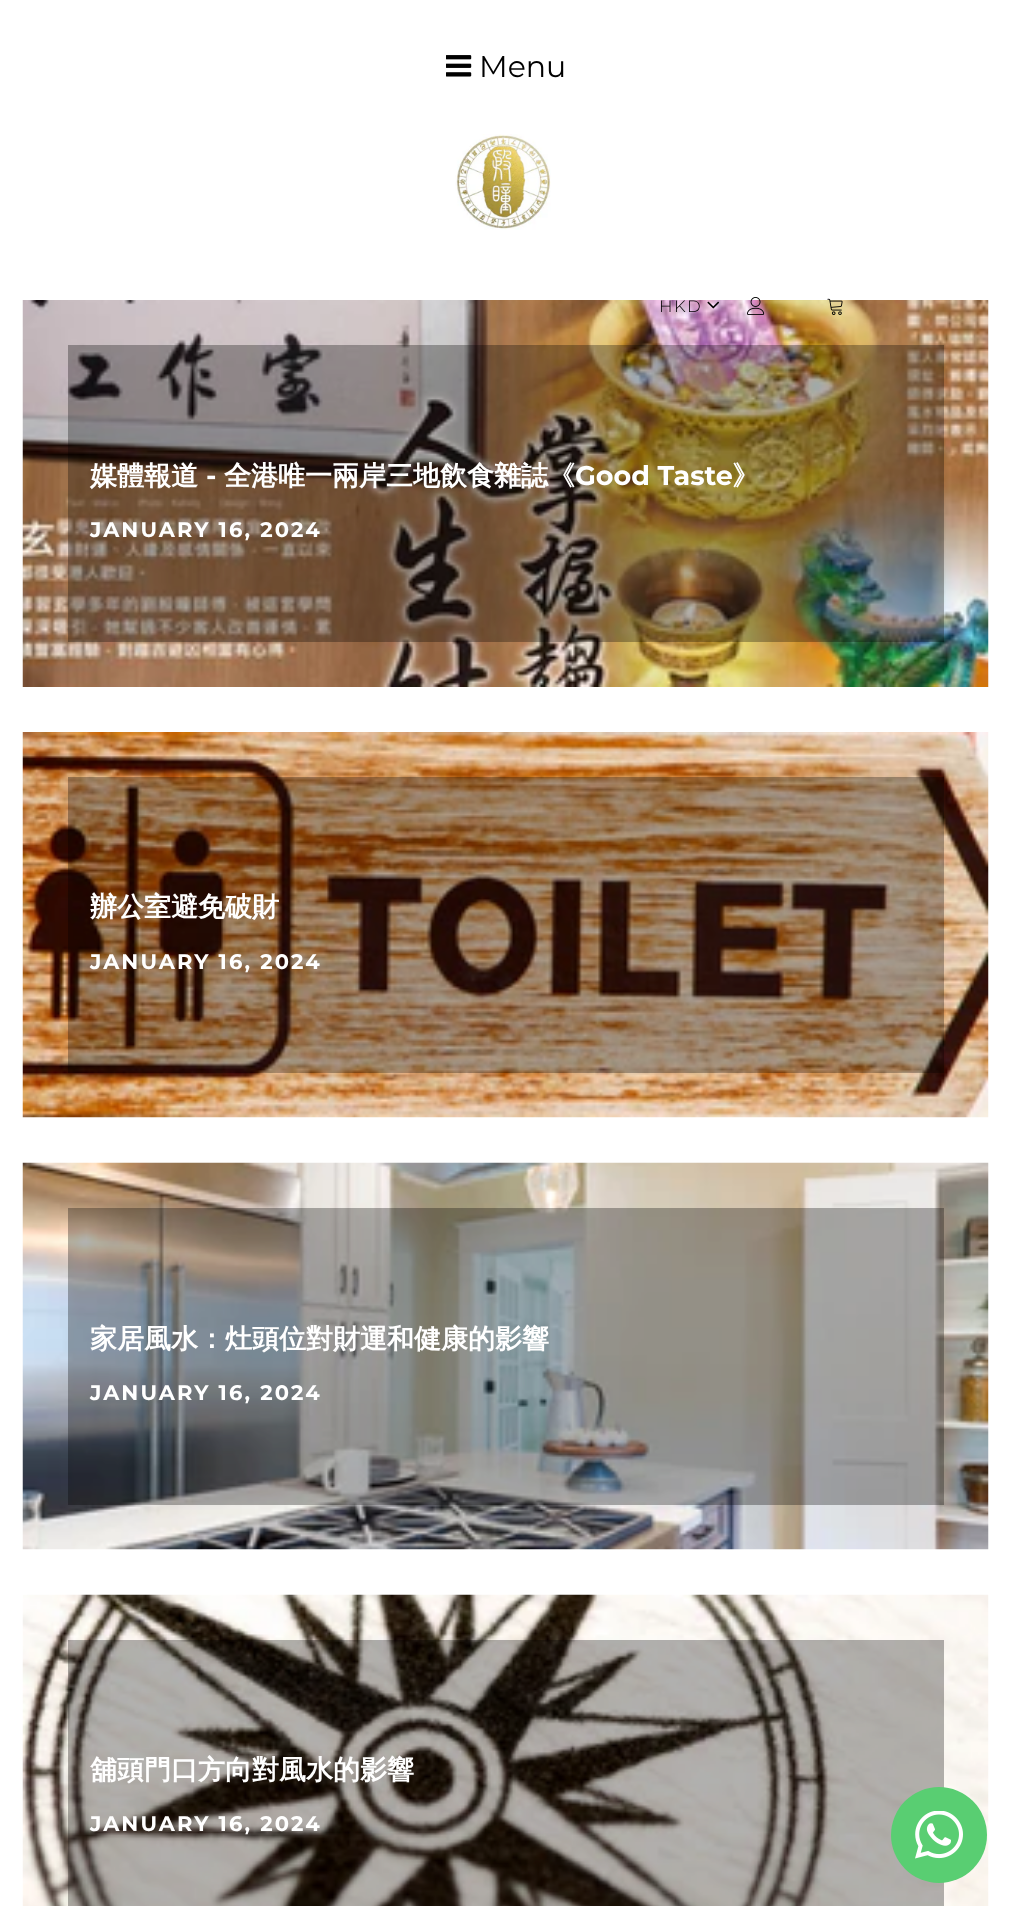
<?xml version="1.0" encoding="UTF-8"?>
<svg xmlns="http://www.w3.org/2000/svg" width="1010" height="1906">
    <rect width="100%" height="100%" fill="#FFFFFF"/>
    <image x="446" y="55" width="26" height="22" href="img_01.png"/>
    <text x="479" y="77" font-family="Montserrat" font-size="30" fill="#000000">Menu</text>
    <image x="455" y="134" width="96" height="96" href="img_02.png"/>
    <image x="22" y="300" width="967" height="387" href="img_06.png"/>
    <text x="659" y="312" font-family="Montserrat" font-size="16.5" font-weight="300" letter-spacing="1.5" fill="#000000">HKD</text>
    <image x="707" y="301" width="13" height="8" href="img_03.png"/>
    <image x="747" y="297" width="18" height="18" href="img_04.png"/>
    <image x="827" y="298" width="16" height="17" href="img_05.png"/>
    <rect x="68" y="345" width="876" height="297" fill="#000000" fill-opacity="0.3"/>
    <text x="90" y="485" font-family="WenQuanYi Zen Hei" font-size="27" font-weight="700" fill="#FFFFFF">媒體報道</text>
    <text x="206" y="485" font-family="Montserrat" font-size="27" font-weight="700" fill="#FFFFFF">-</text>
    <text x="224" y="485" font-family="WenQuanYi Zen Hei" font-size="27" font-weight="700" fill="#FFFFFF">全港唯一兩岸三地飲食雜誌《</text>
    <text x="575" y="485" font-family="Montserrat" font-size="27" font-weight="700" fill="#FFFFFF">Good Taste</text>
    <text x="732" y="485" font-family="WenQuanYi Zen Hei" font-size="27" font-weight="700" fill="#FFFFFF">》</text>
    <text x="90" y="537" font-family="Montserrat" font-size="21" font-weight="700" letter-spacing="2.1" fill="#FFFFFF">JANUARY 16, 2024</text>
    <image x="22" y="732" width="967" height="386" href="img_07.png"/>
    <rect x="68" y="777" width="876" height="296" fill="#000000" fill-opacity="0.3"/>
    <text x="90" y="916" font-family="WenQuanYi Zen Hei" font-size="27" font-weight="700" fill="#FFFFFF">辦公室避免破財</text>
    <text x="90" y="969" font-family="Montserrat" font-size="21" font-weight="700" letter-spacing="2.1" fill="#FFFFFF">JANUARY 16, 2024</text>
    <image x="22" y="1162" width="967" height="388" href="img_08.png"/>
    <rect x="68" y="1208" width="876" height="297" fill="#000000" fill-opacity="0.3"/>
    <text x="90" y="1348" font-family="WenQuanYi Zen Hei" font-size="27" font-weight="700" fill="#FFFFFF">家居風水：灶頭位對財運和健康的影響</text>
    <text x="90" y="1400" font-family="Montserrat" font-size="21" font-weight="700" letter-spacing="2.1" fill="#FFFFFF">JANUARY 16, 2024</text>
    <image x="22" y="1594" width="967" height="312" href="img_09.png"/>
    <rect x="68" y="1640" width="876" height="266" fill="#000000" fill-opacity="0.3"/>
    <text x="90" y="1779" font-family="WenQuanYi Zen Hei" font-size="27" font-weight="700" fill="#FFFFFF">舖頭門口方向對風水的影響</text>
    <text x="90" y="1831" font-family="Montserrat" font-size="21" font-weight="700" letter-spacing="2.1" fill="#FFFFFF">JANUARY 16, 2024</text>
    <circle cx="939" cy="1835" r="48" fill="#59CE72"/>
    <image x="915" y="1811" width="48" height="48" href="img_10.png"/>
</svg>
